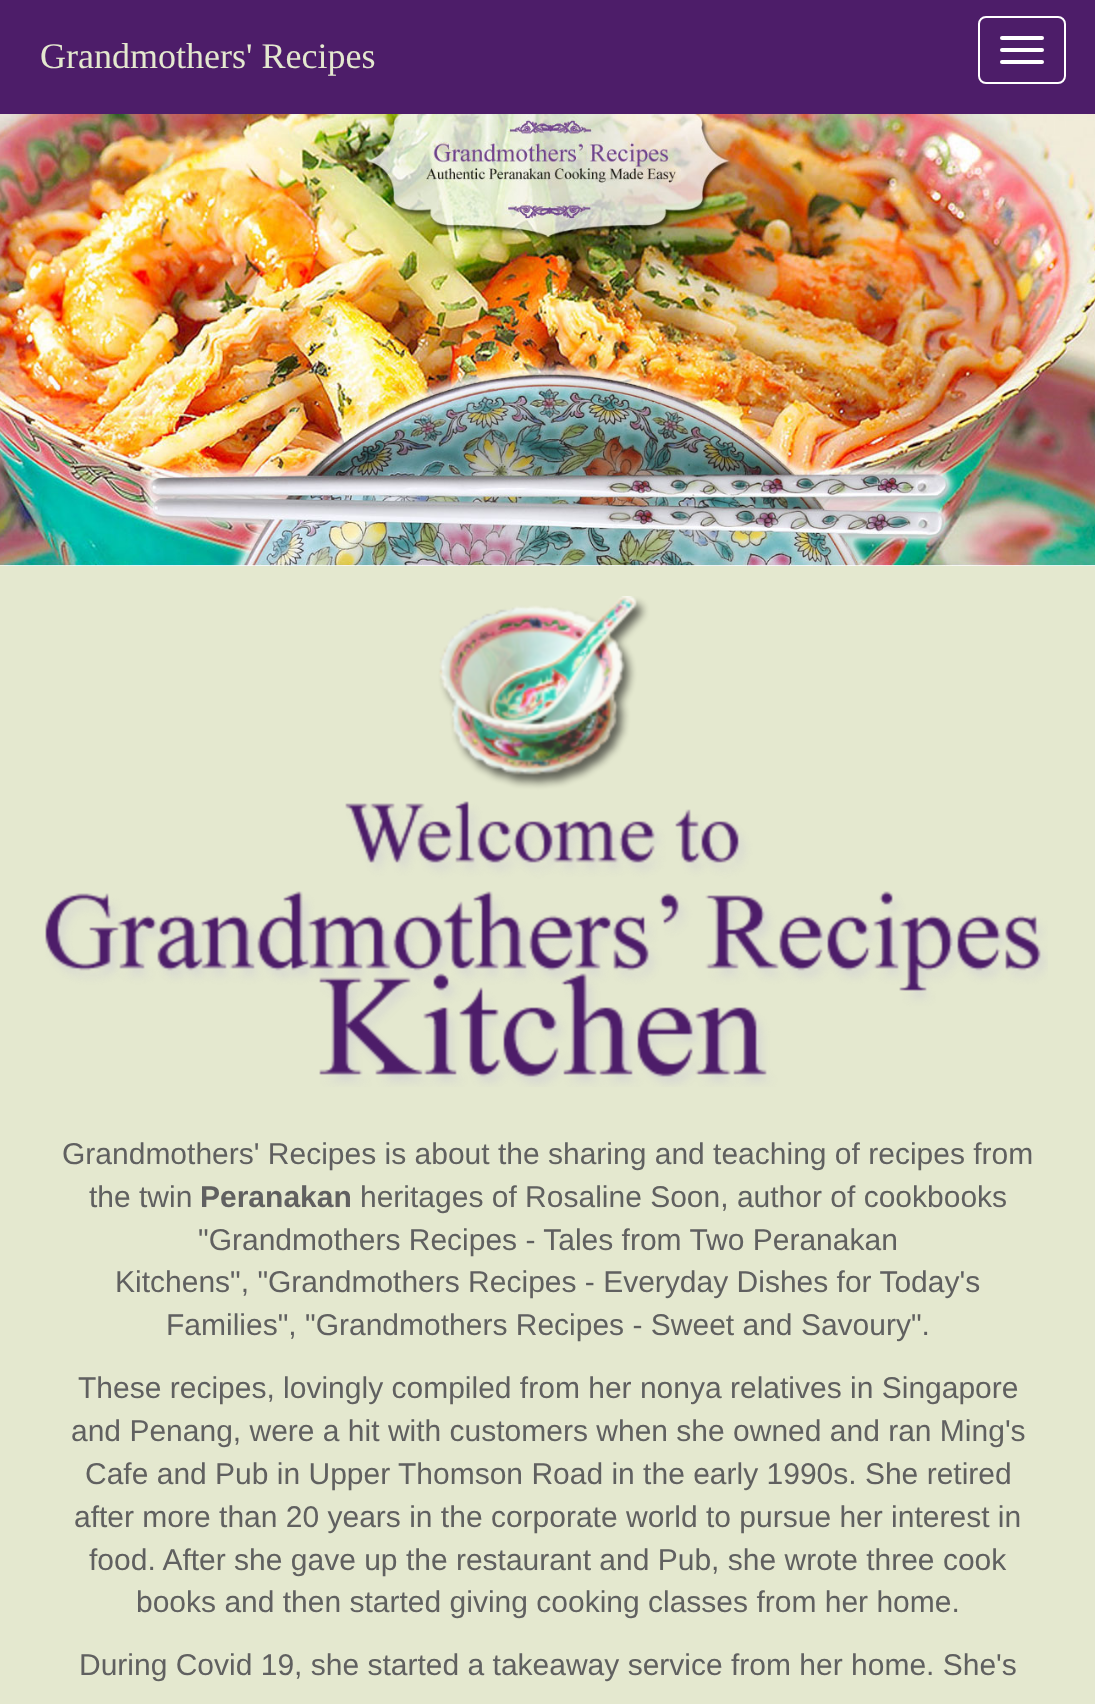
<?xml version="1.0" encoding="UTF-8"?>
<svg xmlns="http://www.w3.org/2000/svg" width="1095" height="1704">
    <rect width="100%" height="100%" fill="#E4E8CF"/>
    <rect x="0" y="0" width="1095" height="114" fill="#4D1D69"/>
    <text x="40" y="68" font-family="Liberation Serif" font-size="36" fill="#E4E8CF">Grandmothers' Recipes</text>
    <rect x="979" y="17" width="86" height="66" rx="7" fill="none" stroke="#FFFFFF" stroke-width="2"/>
    <rect x="1000" y="36" width="44" height="4" rx="2" fill="#FFFFFF"/>
    <rect x="1000" y="48" width="44" height="4" rx="2" fill="#FFFFFF"/>
    <rect x="1000" y="60" width="44" height="4" rx="2" fill="#FFFFFF"/>
    <image x="0" y="114" width="1095" height="452" href="img_01.png"/>
    <image x="45" y="596" width="1003" height="491" href="img_02.png"/>
    <text x="62" y="1164" font-family="Liberation Sans" font-size="30" fill="#606060">Grandmothers' Recipes is about the sharing and teaching of recipes from</text>
    <text x="89" y="1207" font-family="Liberation Sans" font-size="30" fill="#606060">the twin</text>
    <text x="200" y="1207" font-family="Liberation Sans" font-size="30" font-weight="700" fill="#606060">Peranakan</text>
    <text x="360" y="1207" font-family="Liberation Sans" font-size="30" fill="#606060">heritages of Rosaline Soon, author of cookbooks</text>
    <text x="198" y="1250" font-family="Liberation Sans" font-size="30" fill="#606060">"Grandmothers Recipes - Tales from Two Peranakan</text>
    <text x="115" y="1292" font-family="Liberation Sans" font-size="30" fill="#606060">Kitchens", "Grandmothers Recipes - Everyday Dishes for Today's</text>
    <text x="166" y="1335" font-family="Liberation Sans" font-size="30" fill="#606060">Families", "Grandmothers Recipes - Sweet and Savoury".</text>
    <text x="78" y="1398" font-family="Liberation Sans" font-size="30" fill="#606060">These recipes, lovingly compiled from her nonya relatives in Singapore</text>
    <text x="71" y="1441" font-family="Liberation Sans" font-size="30" fill="#606060">and Penang, were a hit with customers when she owned and ran Ming's</text>
    <text x="85" y="1484" font-family="Liberation Sans" font-size="30" fill="#606060">Cafe and Pub in Upper Thomson Road in the early 1990s. She retired</text>
    <text x="74" y="1527" font-family="Liberation Sans" font-size="30" fill="#606060">after more than 20 years in the corporate world to pursue her interest in</text>
    <text x="89" y="1570" font-family="Liberation Sans" font-size="30" fill="#606060">food. After she gave up the restaurant and Pub, she wrote three cook</text>
    <text x="136" y="1612" font-family="Liberation Sans" font-size="30" fill="#606060">books and then started giving cooking classes from her home.</text>
    <text x="79" y="1675" font-family="Liberation Sans" font-size="30" fill="#606060">During Covid 19, she started a takeaway service from her home. She's</text>
</svg>
